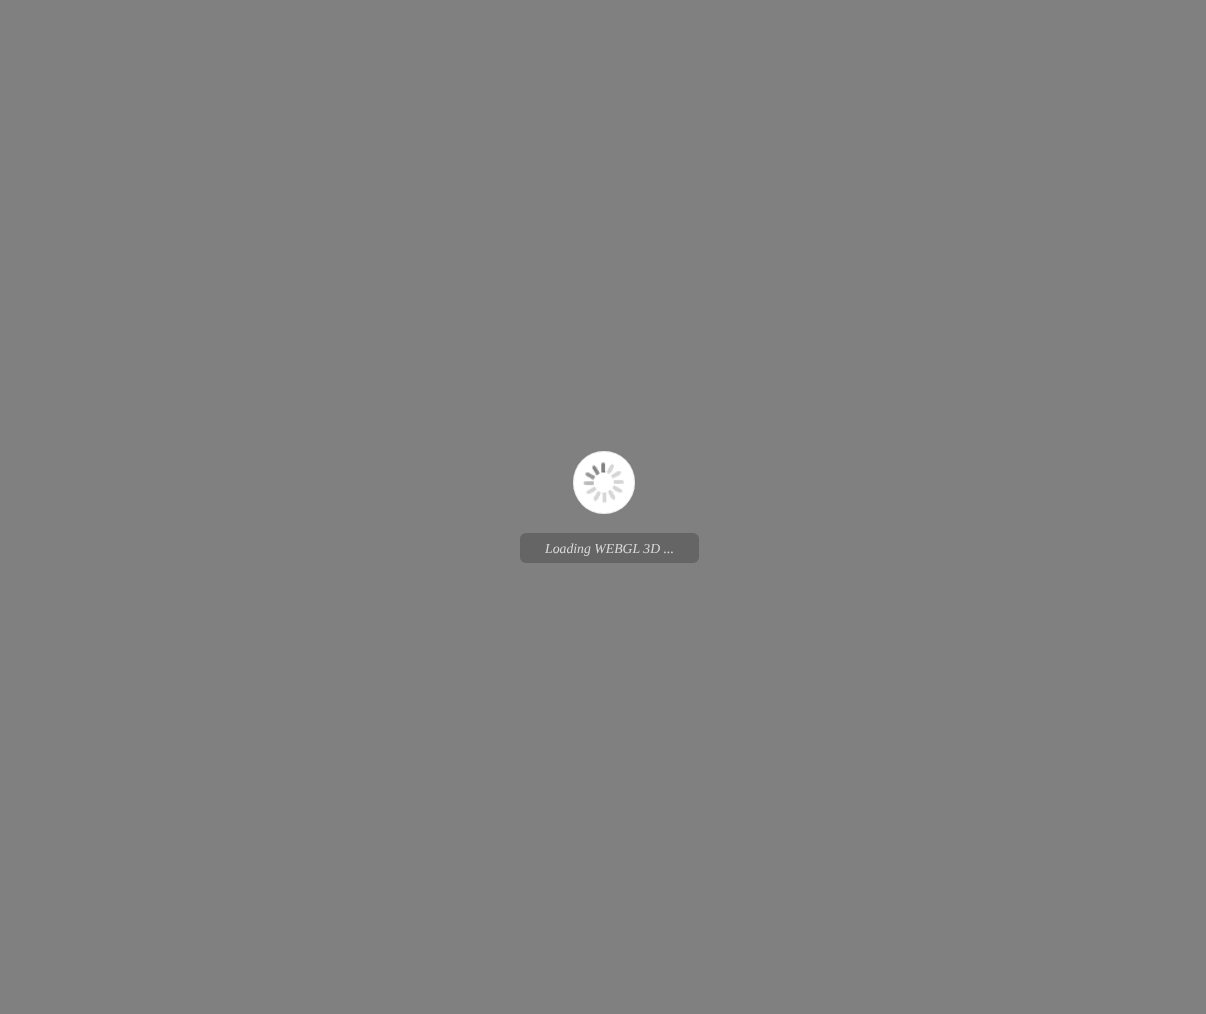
<?xml version="1.0" encoding="UTF-8"?>
<svg xmlns="http://www.w3.org/2000/svg" width="1206" height="1014">
    <rect width="100%" height="100%" fill="#808080"/>
    <rect x="573" y="451" width="62" height="63" rx="31" fill="#FFFFFF"/>
    <rect x="573.5" y="451.5" width="61" height="62" rx="30.5" fill="none" stroke="#969696" stroke-opacity="0.2"/>
    <image x="583" y="462" width="41" height="41" href="img_01.png"/>
    <rect x="520" y="533" width="179" height="30" rx="6" fill="#656565"/>
    <text x="545" y="553" font-family="Liberation Serif" font-size="13.75" font-style="italic" fill="#D9D9D9">Loading WEBGL 3D ...</text>
</svg>
